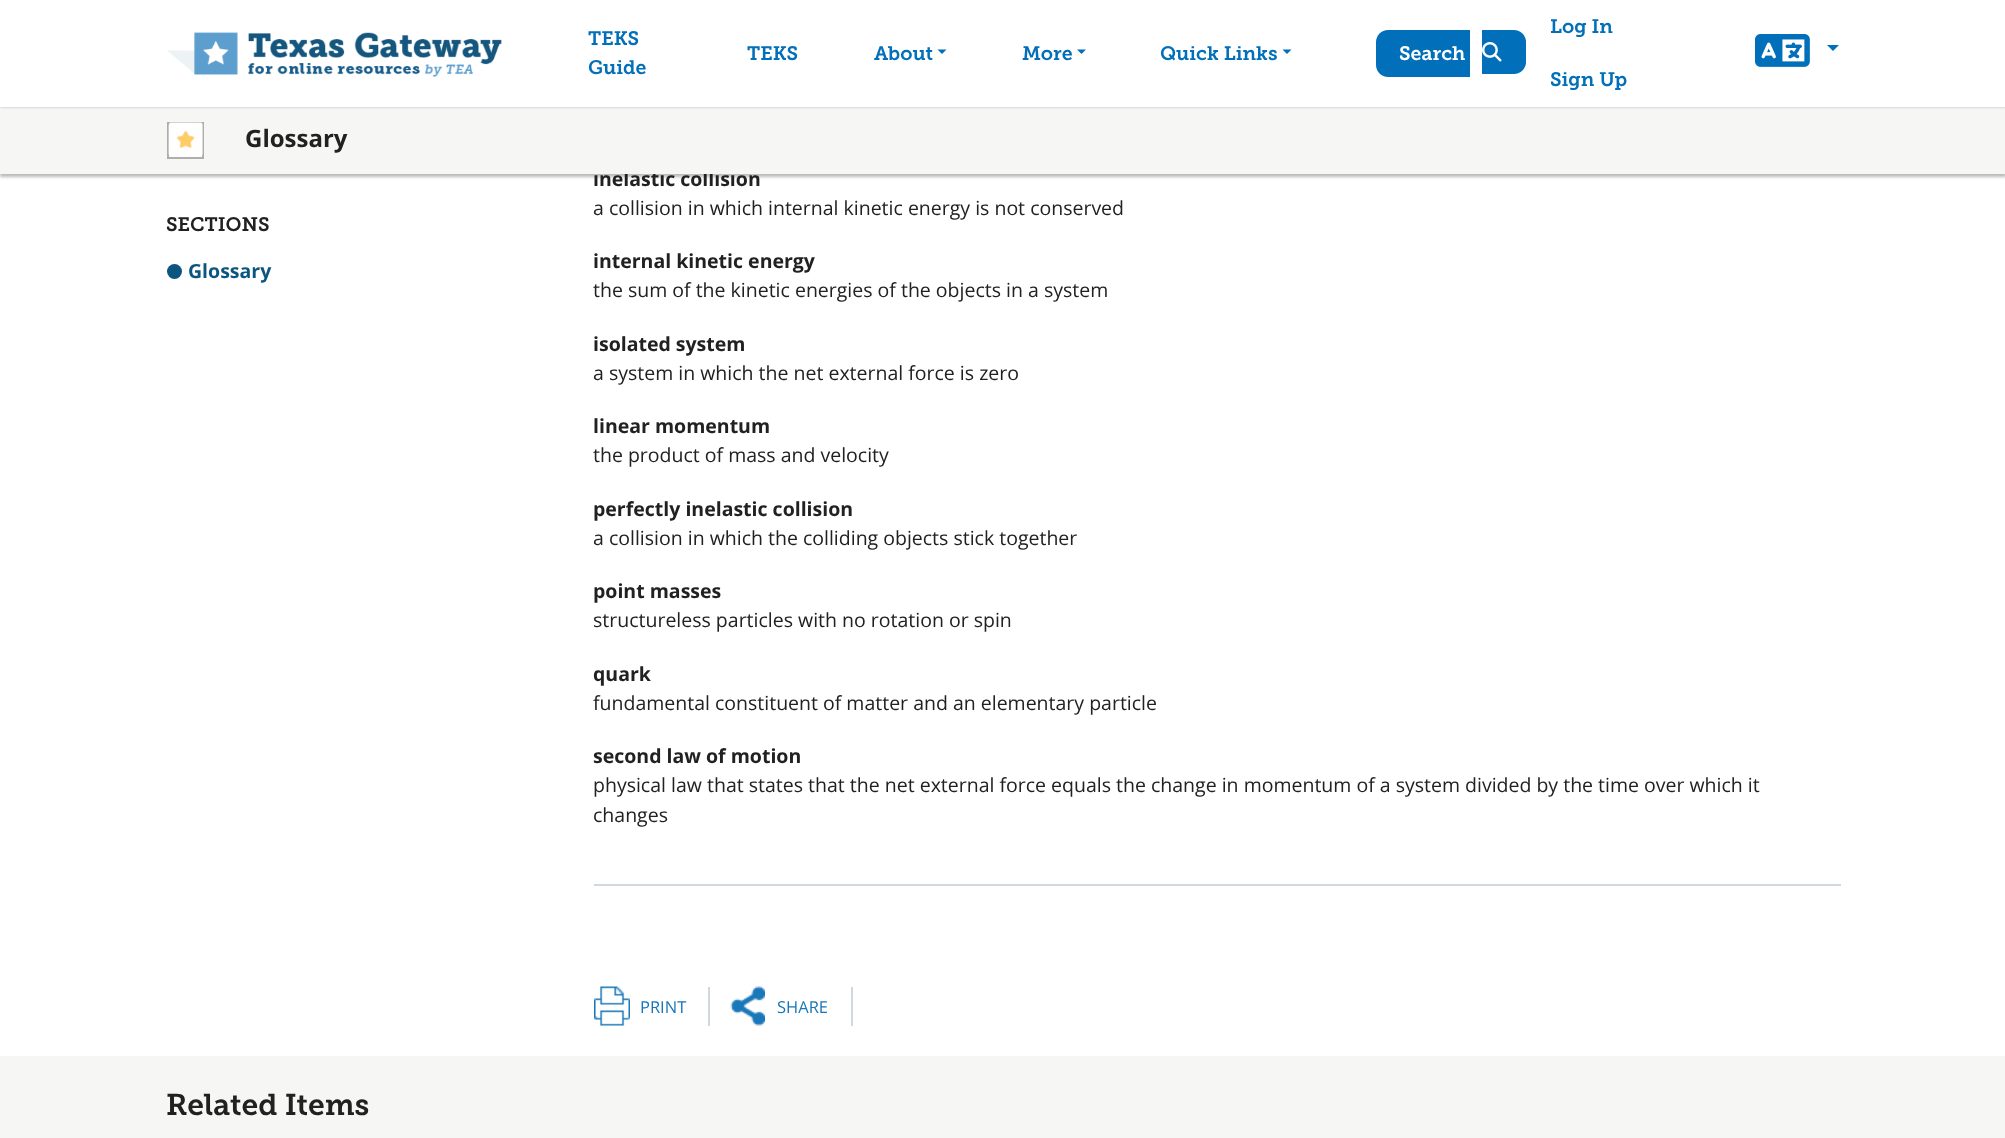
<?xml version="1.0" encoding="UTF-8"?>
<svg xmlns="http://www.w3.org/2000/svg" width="2005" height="1138">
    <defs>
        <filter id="blur1" x="-50%" y="-200%" width="200%" height="500%"><feGaussianBlur stdDeviation="1.5"/></filter>
    </defs>
    <rect width="100%" height="100%" fill="#FFFFFF"/>
    <rect x="0" y="110" width="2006" height="67" fill="#BBBBBB" filter="url(#blur1)"/>
    <text x="593" y="186" font-family="Open Sans" font-size="19.5" font-weight="700" fill="#212121">inelastic collision</text>
    <rect x="0" y="107" width="2005" height="67" fill="#F6F6F5"/>
    <rect x="0" y="0" width="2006" height="107" fill="#BBBBBB" filter="url(#blur1)"/>
    <rect x="0" y="0" width="2005" height="107" fill="#FFFFFF"/>
    <image x="167" y="32" width="335" height="45" href="img_01.png"/>
    <text font-family="'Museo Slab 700'" font-size="19.5" font-weight="600" fill="#016FB9">
        <tspan x="588" y="45">TEKS</tspan>
        <tspan x="588" y="74">Guide</tspan>
    </text>
    <text x="747" y="60" font-family="'Museo Slab 700'" font-size="19.5" font-weight="600" fill="#016FB9">TEKS</text>
    <text x="874" y="60" font-family="'Museo Slab 700'" font-size="19.5" font-weight="600" fill="#016FB9">About</text>
    <path d="M 937.5 49.5 H 946.5 L 942 54 Z" fill="#016FB9"/>
    <text x="1022" y="60" font-family="'Museo Slab 700'" font-size="19.5" font-weight="600" fill="#016FB9">More</text>
    <path d="M 1077 49.5 H 1086 L 1081.5 54 Z" fill="#016FB9"/>
    <text x="1160" y="60" font-family="'Museo Slab 700'" font-size="19.5" font-weight="600" fill="#016FB9">Quick Links</text>
    <path d="M 1282.5 49.5 H 1291.5 L 1287 54 Z" fill="#016FB9"/>
    <path d="M 1388 30 H 1470 V 77 H 1388 C 1381.5 77 1376 71.5 1376 65 V 42 C 1376 35.5 1381.5 30 1388 30 Z" fill="#016FB9"/>
    <path d="M 1482 30 H 1514 C 1520.5 30 1526 35.5 1526 42 V 62 C 1526 68.5 1520.5 74 1514 74 H 1482 Z" fill="#016FB9"/>
    <text x="1399" y="60" font-family="'Museo Slab 700'" font-size="19.5" font-weight="600" fill="#FFFFFF">Search</text>
    <image x="1482" y="42" width="20" height="20" href="img_02.png"/>
    <text x="1550" y="33" font-family="'Museo Slab 700'" font-size="19.5" font-weight="600" fill="#016FB9">Log In</text>
    <text x="1550" y="86" font-family="'Museo Slab 700'" font-size="19.5" font-weight="600" fill="#016FB9">Sign Up</text>
    <image x="1755" y="34" width="55" height="33" href="img_03.png"/>
    <path d="M 1827 45 H 1839 L 1833 51 Z" fill="#016FB9"/>
    <rect x="168" y="123" width="35" height="35" fill="none" stroke="#AEAEAD" stroke-width="2"/>
    <image x="168" y="122" width="35" height="35" href="img_04.png"/>
    <text x="245" y="147" font-family="Open Sans" font-size="24" font-weight="700" fill="#212121">Glossary</text>
    <text x="166" y="231" font-family="'Museo Slab 700'" font-size="19.5" font-weight="600" fill="#212121">SECTIONS</text>
    <circle cx="174.5" cy="271.5" r="7.5" fill="#0C557F"/>
    <text x="188" y="278" font-family="Open Sans" font-size="19.5" font-weight="700" fill="#0C557F">Glossary</text>
    <rect x="594" y="884" width="1247" height="2" fill="#CFDADF"/>
    <text x="593" y="215" font-family="Open Sans" font-size="19.5" fill="#212121">a collision in which internal kinetic energy is not conserved</text>
    <text x="593" y="268" font-family="Open Sans" font-size="19.5" font-weight="700" fill="#212121">internal kinetic energy</text>
    <text x="593" y="297" font-family="Open Sans" font-size="19.5" fill="#212121">the sum of the kinetic energies of the objects in a system</text>
    <text x="593" y="351" font-family="Open Sans" font-size="19.5" font-weight="700" fill="#212121">isolated system</text>
    <text x="593" y="380" font-family="Open Sans" font-size="19.5" fill="#212121">a system in which the net external force is zero</text>
    <text x="593" y="433" font-family="Open Sans" font-size="19.5" font-weight="700" fill="#212121">linear momentum</text>
    <text x="593" y="462" font-family="Open Sans" font-size="19.5" fill="#212121">the product of mass and velocity</text>
    <text x="593" y="516" font-family="Open Sans" font-size="19.5" font-weight="700" fill="#212121">perfectly inelastic collision</text>
    <text x="593" y="545" font-family="Open Sans" font-size="19.5" fill="#212121">a collision in which the colliding objects stick together</text>
    <text x="593" y="598" font-family="Open Sans" font-size="19.5" font-weight="700" fill="#212121">point masses</text>
    <text x="593" y="627" font-family="Open Sans" font-size="19.5" fill="#212121">structureless particles with no rotation or spin</text>
    <text x="593" y="681" font-family="Open Sans" font-size="19.5" font-weight="700" fill="#212121">quark</text>
    <text x="593" y="710" font-family="Open Sans" font-size="19.5" fill="#212121">fundamental constituent of matter and an elementary particle</text>
    <text x="593" y="763" font-family="Open Sans" font-size="19.5" font-weight="700" fill="#212121">second law of motion</text>
    <text font-family="Open Sans" font-size="19.5" fill="#212121">
        <tspan x="593" y="792">physical law that states that the net external force equals the change in momentum of a system divided by the time over which it</tspan>
        <tspan x="593" y="822">changes</tspan>
    </text>
    <rect x="708" y="987" width="2" height="39" fill="#CFDADF"/>
    <image x="594" y="986" width="36" height="40" href="img_05.png"/>
    <text x="640" y="1013" font-family="Open Sans" font-size="16.5" fill="#1776B8">PRINT</text>
    <rect x="851" y="987" width="2" height="39" fill="#CFDADF"/>
    <image x="730" y="986" width="35" height="40" href="img_06.png"/>
    <text x="777" y="1013" font-family="Open Sans" font-size="16.5" fill="#1776B8">SHARE</text>
    <rect x="0" y="1056" width="2005" height="82" fill="#F6F6F5"/>
    <text x="166" y="1115" font-family="'Museo Slab 700'" font-size="30" font-weight="600" fill="#212121">Related Items</text>
</svg>
